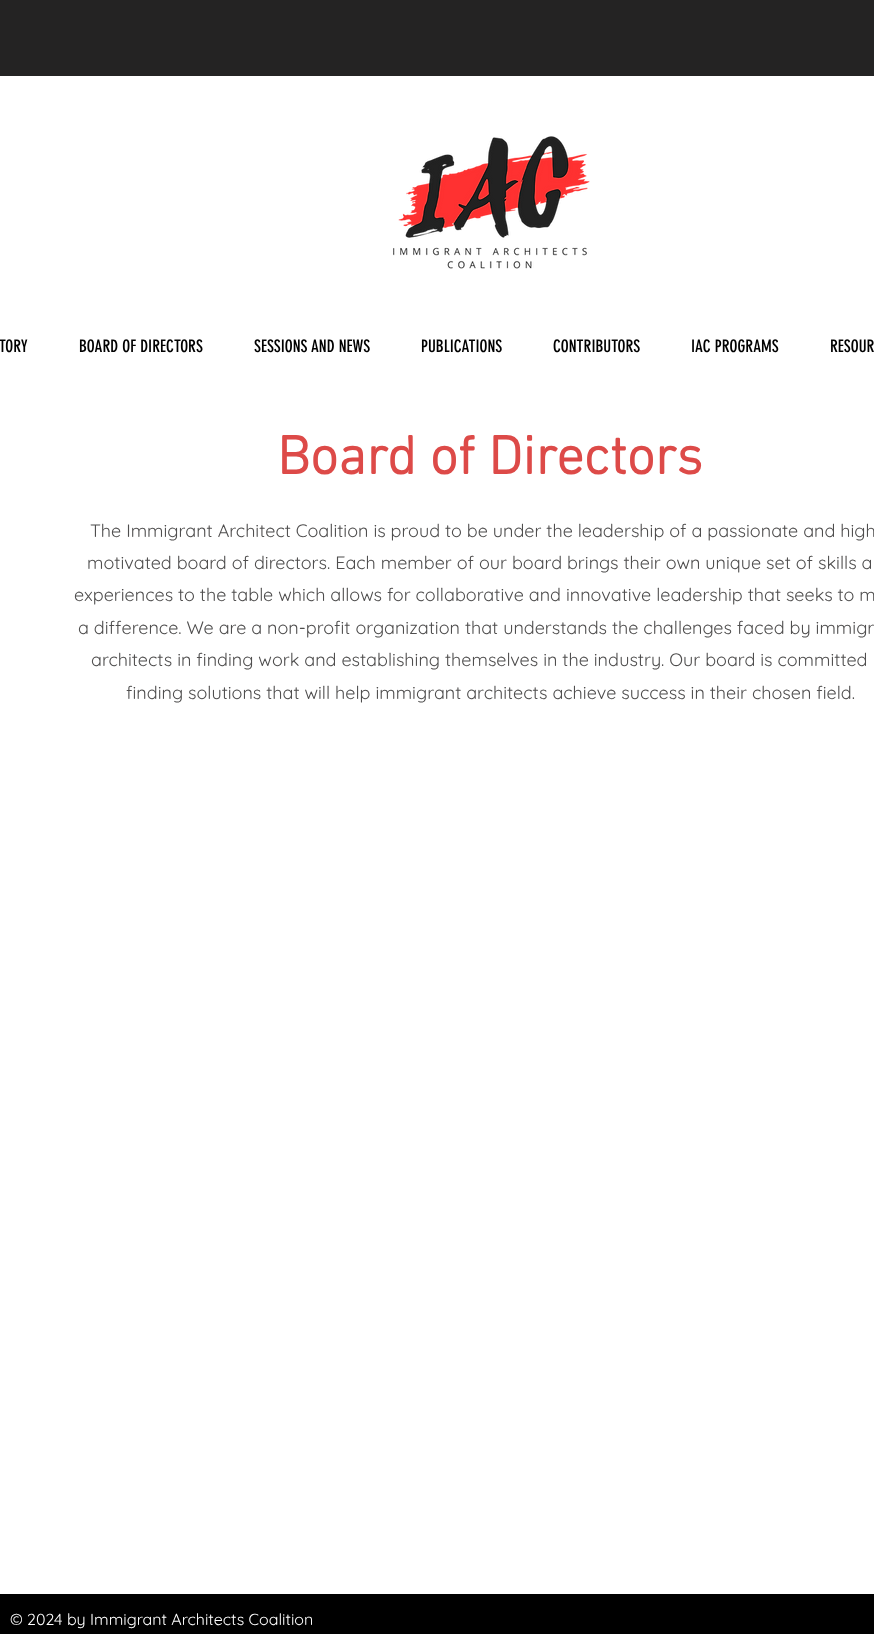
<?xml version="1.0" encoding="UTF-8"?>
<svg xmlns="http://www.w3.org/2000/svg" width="874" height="1634">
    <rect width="100%" height="100%" fill="#FFFFFF"/>
    <rect x="0" y="0" width="874" height="76" fill="#242323"/>
    <image x="393" y="136" width="197" height="133" href="img_01.png"/>
    <text x="-1" y="352" font-family="'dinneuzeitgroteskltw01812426'" font-size="17" fill="#000000">TORY</text>
    <text x="79" y="352" font-family="'dinneuzeitgroteskltw01812426'" font-size="17" fill="#000000">BOARD OF DIRECTORS</text>
    <text x="254" y="352" font-family="'dinneuzeitgroteskltw01812426'" font-size="17" fill="#000000">SESSIONS AND NEWS</text>
    <text x="421" y="352" font-family="'dinneuzeitgroteskltw01812426'" font-size="17" fill="#000000">PUBLICATIONS</text>
    <text x="553" y="352" font-family="'dinneuzeitgroteskltw01812426'" font-size="17" fill="#000000">CONTRIBUTORS</text>
    <text x="691" y="352" font-family="'dinneuzeitgroteskltw01812426'" font-size="17" fill="#000000">IAC PROGRAMS</text>
    <text x="830" y="352" font-family="'dinneuzeitgroteskltw01812426'" font-size="17" fill="#000000">RESOUR</text>
    <text x="277" y="474" font-family="'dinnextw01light'" font-size="55" font-weight="700" fill="#DD4A48">Board of Directors</text>
    <text x="90" y="537" font-family="Quicksand" font-size="18" fill="#4F4E4E">The Immigrant Architect Coalition is proud to be under the leadership of a passionate and high</text>
    <text x="87" y="569" font-family="Quicksand" font-size="18" fill="#4F4E4E">motivated board of directors. Each member of our board brings their own unique set of skills a</text>
    <text x="74" y="601" font-family="Quicksand" font-size="18" fill="#4F4E4E">experiences to the table which allows for collaborative and innovative leadership that seeks to m</text>
    <text x="78" y="634" font-family="Quicksand" font-size="18" fill="#4F4E4E">a difference. We are a non-profit organization that understands the challenges faced by immigr</text>
    <text x="91" y="666" font-family="Quicksand" font-size="18" fill="#4F4E4E">architects in finding work and establishing themselves in the industry. Our board is committed</text>
    <text x="126" y="699" font-family="Quicksand" font-size="18" fill="#4F4E4E">finding solutions that will help immigrant architects achieve success in their chosen field.</text>
    <rect x="0" y="1594" width="874" height="40" fill="#000000"/>
    <text x="10" y="1625" font-family="Quicksand" font-size="16" fill="#FFFFFF">© 2024 by Immigrant Architects Coalition</text>
</svg>
